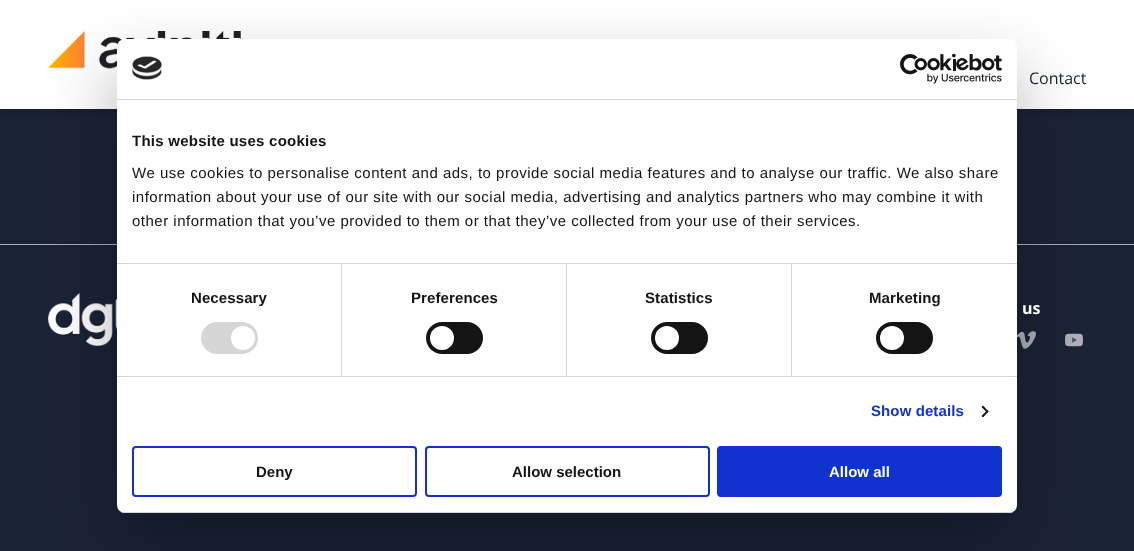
<?xml version="1.0" encoding="UTF-8"?>
<svg xmlns="http://www.w3.org/2000/svg" width="1134" height="551">
    <defs>
        <filter id="blur1" x="-50%" y="-200%" width="200%" height="500%"><feGaussianBlur stdDeviation="5"/></filter>
        <filter id="blur2" x="-50%" y="-200%" width="200%" height="500%"><feGaussianBlur stdDeviation="34"/></filter>
        <clipPath id="clip1"><rect x="117" y="39" width="900" height="474" rx="8"/></clipPath>
    </defs>
    <rect width="100%" height="100%" fill="#1A2235"/>
    <rect x="-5" y="-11" width="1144" height="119" fill="#000000" fill-opacity="0.32" filter="url(#blur1)"/>
    <rect x="0" y="0" width="1134" height="109" fill="#FFFFFF"/>
    <image x="48" y="31" width="193" height="38" href="img_01.png"/>
    <text x="1029" y="84" font-family="Open Sans" font-size="16" fill="#1A2235">Contact</text>
    <rect x="0" y="244" width="1134" height="1" fill="#ABAEB4"/>
    <image x="48" y="293" width="69" height="53" href="img_04.png"/>
    <image x="1017" y="331" width="19" height="18" href="img_05.png"/>
    <image x="1065" y="333" width="18" height="14" href="img_06.png"/>
    <rect x="117" y="71" width="900" height="474" rx="8" fill="#000000" fill-opacity="0.3" filter="url(#blur2)"/>
    <rect x="117" y="39" width="900" height="474" rx="8" fill="#FFFFFF"/>
    <rect x="117" y="99" width="900" height="1" fill="#D6D6D6"/>
    <image x="132" y="56" width="30" height="24" href="img_02.png"/>
    <image x="900" y="54" width="102" height="30" href="img_03.png"/>
    <rect x="117" y="263" width="900" height="1" fill="#D6D6D6"/>
    <text x="132" y="146" font-family="Liberation Sans" font-size="15" font-weight="700" letter-spacing="0.25" fill="#141414">This website uses cookies</text>
    <text font-family="Liberation Sans" font-size="15" letter-spacing="0.5" fill="#141414">
        <tspan x="132" y="178">We use cookies to personalise content and ads, to provide social media features and to analyse our traffic. We also share</tspan>
        <tspan x="132" y="202">information about your use of our site with our social media, advertising and analytics partners who may combine it with</tspan>
        <tspan x="132" y="226">other information that you’ve provided to them or that they’ve collected from your use of their services.</tspan>
    </text>
    <rect x="117" y="376" width="900" height="1" fill="#D6D6D6"/>
    <rect x="341" y="264" width="1" height="112" fill="#D6D6D6"/>
    <text x="191" y="303" font-family="Liberation Sans" font-size="15" font-weight="700" letter-spacing="0.1" fill="#141414">Necessary</text>
    <rect x="201" y="322" width="57" height="32" rx="16" fill="#D6D6D6"/>
    <circle cx="243" cy="338" r="12" fill="#FFFFFF"/>
    <rect x="566" y="264" width="1" height="112" fill="#D6D6D6"/>
    <text x="411" y="303" font-family="Liberation Sans" font-size="15" font-weight="700" letter-spacing="0.1" fill="#141414">Preferences</text>
    <rect x="426" y="322" width="57" height="32" rx="16" fill="#141414"/>
    <circle cx="442" cy="338" r="12" fill="#FFFFFF"/>
    <rect x="791" y="264" width="1" height="112" fill="#D6D6D6"/>
    <text x="645" y="303" font-family="Liberation Sans" font-size="15" font-weight="700" letter-spacing="0.1" fill="#141414">Statistics</text>
    <rect x="651" y="322" width="57" height="32" rx="16" fill="#141414"/>
    <circle cx="667" cy="338" r="12" fill="#FFFFFF"/>
    <text x="869" y="303" font-family="Liberation Sans" font-size="15" font-weight="700" letter-spacing="0.1" fill="#141414">Marketing</text>
    <rect x="876" y="322" width="57" height="32" rx="16" fill="#141414"/>
    <circle cx="892" cy="338" r="12" fill="#FFFFFF"/>
    <text x="871" y="416" font-family="Liberation Sans" font-size="15" font-weight="700" letter-spacing="0.1" fill="#1032CF">Show details</text>
    <path d="M 983 405.5 L 988.5 411.5 L 987.5 413 L 981.5 407 Z" fill="#141414"/>
    <path d="M 987.5 410 L 988.5 411.5 L 983 417.5 L 981.5 416 Z" fill="#141414"/>
    <g clip-path="url(#clip1)">
        <rect x="117" y="512" width="900" height="1" fill="#D6D6D6"/>
    </g>
    <rect x="133" y="447" width="283" height="49" rx="3" fill="none" stroke="#1032CF" stroke-width="2"/>
    <text x="256" y="477" font-family="Liberation Sans" font-size="15" font-weight="700" fill="#141414">Deny</text>
    <rect x="426" y="447" width="283" height="49" rx="3" fill="none" stroke="#1032CF" stroke-width="2"/>
    <text x="512" y="477" font-family="Liberation Sans" font-size="15" font-weight="700" fill="#141414">Allow selection</text>
    <rect x="718" y="447" width="283" height="49" rx="3" fill="#1032CF" stroke="#1032CF" stroke-width="2"/>
    <text x="829" y="477" font-family="Liberation Sans" font-size="15" font-weight="700" fill="#FFFFFF">Allow all</text>
    <text x="1022" y="314" font-family="Open Sans" font-size="16" font-weight="700" fill="#FFFFFF">us</text>
</svg>
